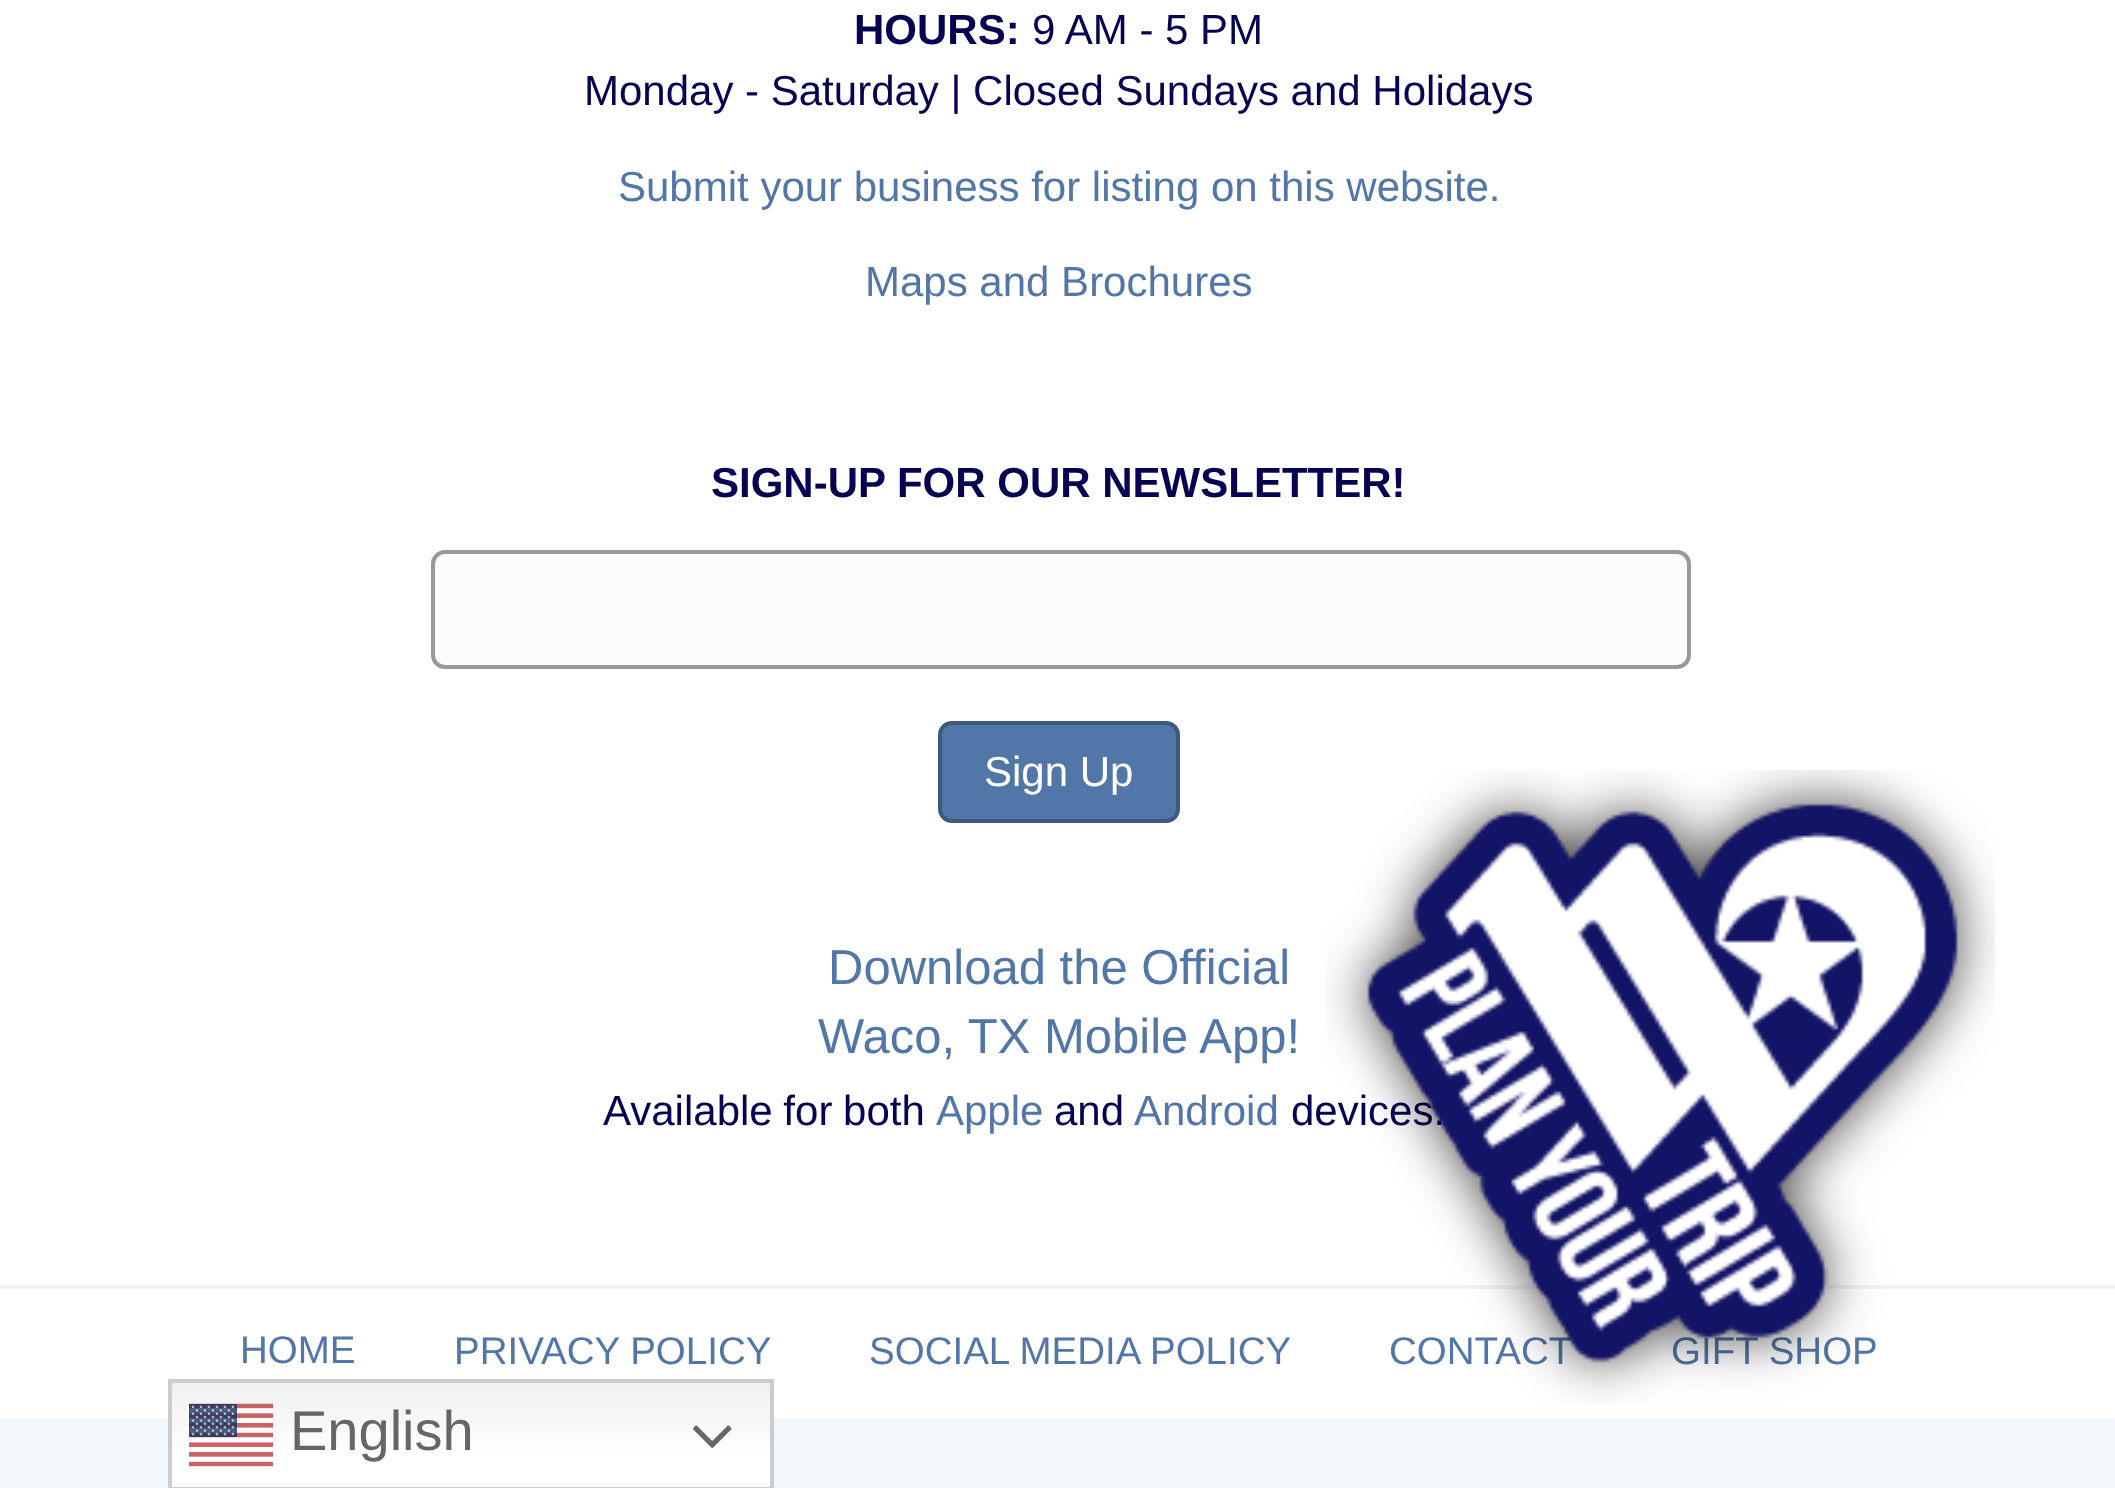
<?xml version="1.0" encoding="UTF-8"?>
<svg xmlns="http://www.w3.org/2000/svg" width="2115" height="1488">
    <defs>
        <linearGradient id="g1" gradientUnits="userSpaceOnUse" x1="471" y1="1379" x2="471" y2="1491"><stop offset="0" stop-color="#EFEFEF"/><stop offset="0.7" stop-color="#FFFFFF"/></linearGradient>
    </defs>
    <rect width="100%" height="100%" fill="#F2F7FC"/>
    <rect x="0" y="0" width="2115" height="1285" fill="#FFFFFF"/>
    <text x="854" y="44" font-family="Liberation Sans" font-size="42" font-weight="700" fill="#070353">HOURS:</text>
    <text x="1032" y="44" font-family="Liberation Sans" font-size="42" fill="#070353">9 AM - 5 PM</text>
    <text x="584" y="105" font-family="Liberation Sans" font-size="42" fill="#070353">Monday - Saturday | Closed Sundays and Holidays</text>
    <text x="618" y="201" font-family="Liberation Sans" font-size="42" fill="#5276A7">Submit your business for listing on this website.</text>
    <text x="865" y="296" font-family="Liberation Sans" font-size="42" fill="#5276A7">Maps and Brochures</text>
    <text x="711" y="497" font-family="Liberation Sans" font-size="42" font-weight="700" fill="#070353">SIGN-UP FOR OUR NEWSLETTER!</text>
    <rect x="433" y="552" width="1256" height="115" rx="12" fill="#FCFCFC" stroke="#999999" stroke-width="4"/>
    <rect x="940" y="723" width="238" height="98" rx="12" fill="#5276A7" stroke="#3E597E" stroke-width="4"/>
    <text x="984" y="786" font-family="Liberation Sans" font-size="42" fill="#FFFFFF">Sign Up</text>
    <text x="828" y="984" font-family="Liberation Sans" font-size="49" fill="#5276A7">Download the Official</text>
    <text x="818" y="1053" font-family="Liberation Sans" font-size="49" fill="#5276A7">Waco, TX Mobile App!</text>
    <text x="603" y="1125" word-spacing="-1" font-family="Liberation Sans" font-size="42" fill="#070353">Available for both</text>
    <text x="936" y="1125" font-family="Liberation Sans" font-size="42" fill="#5276A7">Apple</text>
    <text x="1054" y="1125" font-family="Liberation Sans" font-size="42" fill="#070353">and</text>
    <text x="1134" y="1125" font-family="Liberation Sans" font-size="42" fill="#5276A7">Android</text>
    <text x="1291" y="1125" font-family="Liberation Sans" font-size="42" fill="#070353">devices.</text>
    <rect x="0" y="1289" width="2115" height="129" fill="#FFFFFF"/>
    <rect x="0" y="1285" width="2115" height="4" fill="#F3F3F3"/>
    <text x="240" y="1363" font-family="Liberation Sans" font-size="38.5" fill="#5276A7">HOME</text>
    <text x="454" y="1364" font-family="Liberation Sans" font-size="38.5" fill="#5276A7">PRIVACY POLICY</text>
    <text x="869" y="1364" font-family="Liberation Sans" font-size="38.5" fill="#5276A7">SOCIAL MEDIA POLICY</text>
    <text x="1389" y="1364" font-family="Liberation Sans" font-size="38.5" fill="#5276A7">CONTACT</text>
    <text x="1671" y="1364" font-family="Liberation Sans" font-size="38.5" fill="#5276A7">GIFT SHOP</text>
    <image x="1325" y="770" width="670" height="633" href="img_01.png"/>
    <rect x="172" y="1383" width="598" height="104" fill="url(#g1)"/>
    <rect x="170" y="1381" width="602" height="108" fill="none" stroke="#CCCCCC" stroke-width="4"/>
    <image x="189" y="1403" width="84" height="64" href="img_02.png"/>
    <text x="290" y="1450" font-family="Liberation Sans" font-size="56" fill="#666666">English</text>
    <image x="693" y="1425" width="39" height="23" href="img_03.png"/>
</svg>
